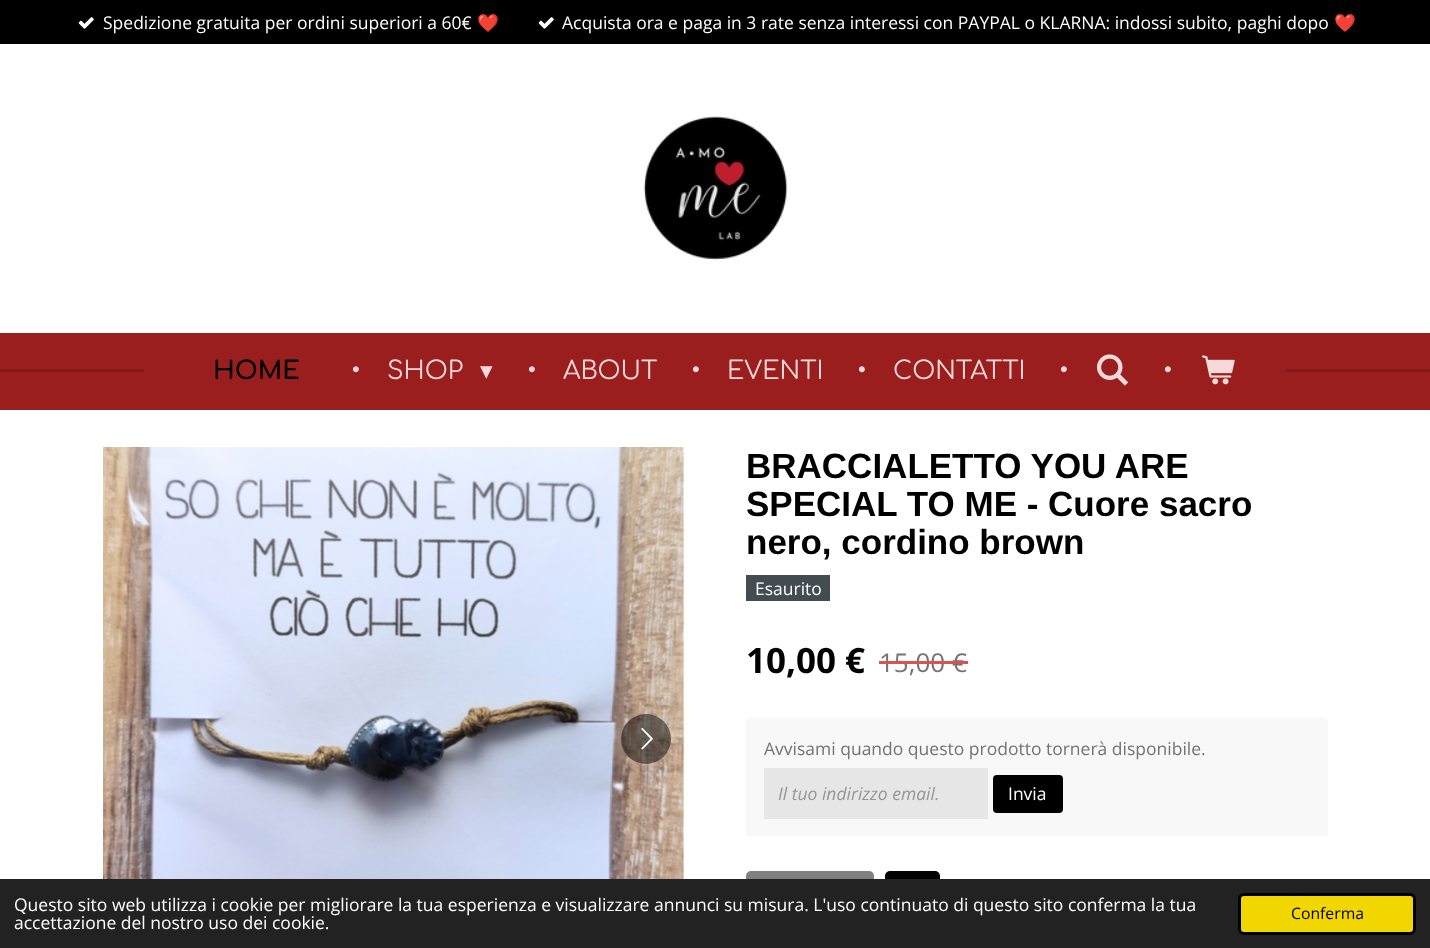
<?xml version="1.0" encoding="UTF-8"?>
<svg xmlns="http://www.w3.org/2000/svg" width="1430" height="948">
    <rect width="100%" height="100%" fill="#FFFFFF"/>
    <rect x="0" y="0" width="1430" height="44" fill="#000000"/>
    <image x="78" y="17" width="16" height="12" href="img_01.png"/>
    <text x="103" y="29" font-family="Open Sans" font-size="17.5" fill="#FFFFFF">Spedizione gratuita per ordini superiori a 60€</text>
    <text x="477" y="29" font-family="Noto Color Emoji" font-size="17.5" fill="#FFFFFF">❤️</text>
    <image x="538" y="17" width="16" height="12" href="img_01.png"/>
    <text x="562" y="29" font-family="Open Sans" font-size="17.5" fill="#FFFFFF">Acquista ora e paga in 3 rate senza interessi con PAYPAL o KLARNA: indossi subito, paghi dopo</text>
    <text x="1334" y="29" font-family="Noto Color Emoji" font-size="17.5" fill="#FFFFFF">❤️</text>
    <image x="643" y="116" width="145" height="144" href="img_02.png"/>
    <rect x="0" y="333" width="1430" height="77" fill="#9A1E1E"/>
    <rect x="0" y="369" width="144" height="3" fill="#831A1A"/>
    <text x="213" y="379" font-family="Comfortaa" font-size="25" font-weight="700" fill="#000000">HOME</text>
    <text x="351" y="379" font-family="Comfortaa" font-size="25" fill="#F8D9D9">•</text>
    <text x="387" y="379" font-family="Comfortaa" font-size="25" fill="#F8D9D9">SHOP</text>
    <text x="480" y="379" font-family="DejaVu Sans" font-size="25" fill="#F8D9D9">▾</text>
    <text x="527" y="379" font-family="Comfortaa" font-size="25" fill="#F8D9D9">•</text>
    <text x="563" y="379" font-family="Comfortaa" font-size="25" fill="#F8D9D9">ABOUT</text>
    <text x="691" y="379" font-family="Comfortaa" font-size="25" fill="#F8D9D9">•</text>
    <text x="727" y="379" font-family="Comfortaa" font-size="25" fill="#F8D9D9">EVENTI</text>
    <text x="857" y="379" font-family="Comfortaa" font-size="25" fill="#F8D9D9">•</text>
    <text x="893" y="379" font-family="Comfortaa" font-size="25" fill="#F8D9D9">CONTATTI</text>
    <text x="1059" y="379" font-family="Comfortaa" font-size="25" fill="#F8D9D9">•</text>
    <image x="1096" y="354" width="33" height="32" href="img_03.png"/>
    <text x="1163" y="379" font-family="Comfortaa" font-size="25" fill="#F8D9D9">•</text>
    <image x="1202" y="355" width="33" height="30" href="img_04.png"/>
    <rect x="1286" y="369" width="144" height="3" fill="#831A1A"/>
    <image x="103" y="447" width="581" height="432" href="img_05.png"/>
    <circle cx="646" cy="739" r="25" fill="#000000" fill-opacity="0.5"/>
    <image x="641" y="728" width="12" height="22" href="img_06.png"/>
    <text font-family="Liberation Sans" font-size="35" font-weight="700" fill="#000000">
        <tspan x="746" y="478">BRACCIALETTO YOU ARE</tspan>
        <tspan x="746" y="516">SPECIAL TO ME - Cuore sacro</tspan>
        <tspan x="746" y="554">nero, cordino brown</tspan>
    </text>
    <rect x="746" y="575" width="84" height="26" fill="#424C51"/>
    <text x="755" y="595" font-family="Open Sans" font-size="17.5" fill="#FFFFFF">Esaurito</text>
    <text x="746" y="673" font-family="Open Sans" font-size="35" font-weight="700" fill="#000000">10,00 €</text>
    <text x="879" y="672" font-family="Open Sans" font-size="26" fill="#737373">15,00 €</text>
    <rect x="879" y="661" width="89" height="3" fill="#D9534F"/>
    <rect x="746" y="718" width="582" height="118" rx="4" fill="#F8F8F8"/>
    <text x="764" y="755" font-family="Open Sans" font-size="17.5" fill="#737373">Avvisami quando questo prodotto tornerà disponibile.</text>
    <rect x="764" y="768" width="224" height="51" fill="#E6E6E6"/>
    <text x="778" y="800" font-family="Open Sans" font-size="17.5" font-style="italic" fill="#969696">Il tuo indirizzo email.</text>
    <rect x="993" y="775" width="70" height="38" rx="4" fill="#000000"/>
    <text x="1008" y="800" font-family="Open Sans" font-size="17.5" fill="#FFFFFF">Invia</text>
    <rect x="746" y="871" width="128" height="58" rx="5" fill="#808080"/>
    <rect x="885" y="871" width="55" height="58" rx="5" fill="#000000"/>
    <rect x="0" y="879" width="1430" height="69" fill="#222222"/>
    <text font-family="Open Sans" font-size="17.5" fill="#FFFFFF">
        <tspan x="14" y="911">Questo sito web utilizza i cookie per migliorare la tua esperienza e visualizzare annunci su misura. L'uso continuato di questo sito conferma la tua</tspan>
        <tspan x="14" y="929">accettazione del nostro uso dei cookie.</tspan>
    </text>
    <rect x="1239.5" y="894.5" width="175" height="39" rx="4.5" fill="#F1D600" stroke="#000000" stroke-width="3"/>
    <text x="1291" y="919" font-family="Open Sans" font-size="15.75" fill="#000000">Conferma</text>
</svg>
